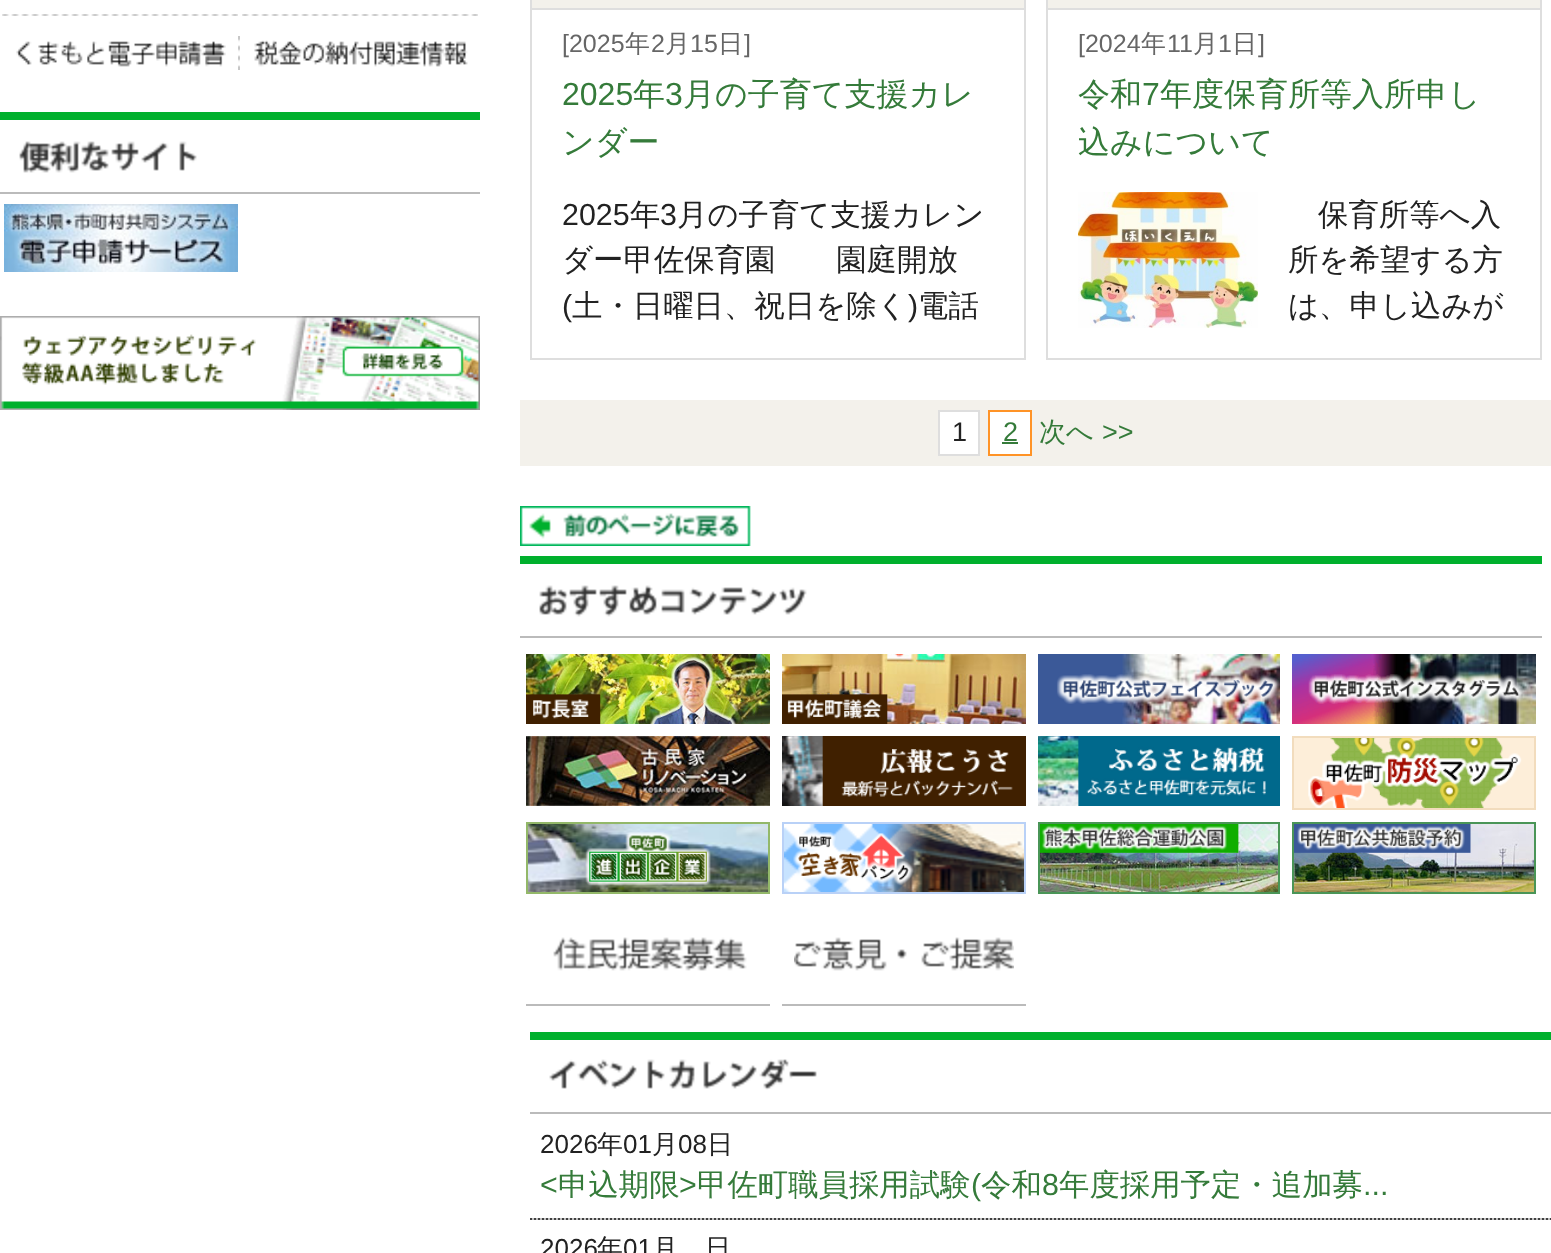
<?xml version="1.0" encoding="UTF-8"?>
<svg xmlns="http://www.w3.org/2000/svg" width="1551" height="1253">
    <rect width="100%" height="100%" fill="#FFFFFF"/>
    <image x="2" y="14" width="236" height="2" href="img_01.png"/>
    <image x="242" y="14" width="236" height="2" href="img_01.png"/>
    <image x="238" y="36" width="2" height="34" href="img_02.png"/>
    <image x="16" y="41" width="210" height="26" href="img_03.png"/>
    <image x="254" y="40" width="214" height="27" href="img_04.png"/>
    <rect x="0" y="112" width="480" height="8" fill="#00B02D"/>
    <rect x="0" y="192" width="480" height="2" fill="#BBBBBB"/>
    <image x="19" y="141" width="178" height="32" href="img_05.png"/>
    <image x="4" y="204" width="234" height="68" href="img_06.png"/>
    <image x="0" y="316" width="480" height="94" href="img_07.png"/>
    <rect x="531" y="-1" width="494" height="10" fill="#F3F1EB" stroke="#DEDEDE" stroke-width="2"/>
    <rect x="1024" y="10" width="2" height="350" fill="#DEDEDE"/>
    <rect x="530" y="358" width="496" height="2" fill="#DEDEDE"/>
    <rect x="530" y="10" width="2" height="350" fill="#DEDEDE"/>
    <text x="562" y="52" font-family="Liberation Sans" font-size="25" fill="#666666">[2025</text>
    <text x="625" y="52" font-family="WenQuanYi Zen Hei" font-size="25" font-weight="500" fill="#666666">年</text>
    <text x="651" y="52" font-family="Liberation Sans" font-size="25" fill="#666666">2</text>
    <text x="665" y="52" font-family="WenQuanYi Zen Hei" font-size="25" font-weight="500" fill="#666666">月</text>
    <text x="690" y="52" font-family="Liberation Sans" font-size="25" fill="#666666">15</text>
    <text x="718" y="52" font-family="WenQuanYi Zen Hei" font-size="25" font-weight="500" fill="#666666">日</text>
    <text x="744" y="52" font-family="Liberation Sans" font-size="25" fill="#666666">]</text>
    <text x="562" y="105" font-family="Liberation Sans" font-size="32" fill="#357B3A">2025</text>
    <text x="633" y="105" font-family="WenQuanYi Zen Hei" font-size="32" font-weight="500" fill="#357B3A">年</text>
    <text x="665" y="105" font-family="Liberation Sans" font-size="32" fill="#357B3A">3</text>
    <text x="683" y="105" font-family="WenQuanYi Zen Hei" font-size="32" font-weight="500" fill="#357B3A">月の子育て支援カレ</text>
    <text x="562" y="153" font-family="WenQuanYi Zen Hei" font-size="32" font-weight="500" fill="#357B3A">ンダー</text>
    <text x="562" y="225" font-family="Liberation Sans" font-size="30.4" fill="#222222">2025</text>
    <text x="630" y="225" font-family="WenQuanYi Zen Hei" font-size="30.4" font-weight="500" fill="#222222">年</text>
    <text x="660" y="225" font-family="Liberation Sans" font-size="30.4" fill="#222222">3</text>
    <text x="677" y="225" font-family="WenQuanYi Zen Hei" font-size="30.4" font-weight="500" fill="#222222">月の子育て支援カレン</text>
    <text x="562" y="270" font-family="WenQuanYi Zen Hei" font-size="30.4" font-weight="500" fill="#222222">ダー甲佐保育園　　園庭開放</text>
    <text x="562" y="316" font-family="Liberation Sans" font-size="30.4" fill="#222222">(</text>
    <text x="572" y="316" font-family="WenQuanYi Zen Hei" font-size="30.4" font-weight="500" fill="#222222">土・日曜日、祝日を除く</text>
    <text x="908" y="316" font-family="Liberation Sans" font-size="30.4" fill="#222222">)</text>
    <text x="918" y="316" font-family="WenQuanYi Zen Hei" font-size="30.4" font-weight="500" fill="#222222">電話</text>
    <rect x="1047" y="-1" width="494" height="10" fill="#F3F1EB" stroke="#DEDEDE" stroke-width="2"/>
    <rect x="1540" y="10" width="2" height="350" fill="#DEDEDE"/>
    <rect x="1046" y="358" width="496" height="2" fill="#DEDEDE"/>
    <rect x="1046" y="10" width="2" height="350" fill="#DEDEDE"/>
    <text x="1078" y="52" font-family="Liberation Sans" font-size="25" fill="#666666">[2024</text>
    <text x="1141" y="52" font-family="WenQuanYi Zen Hei" font-size="25" font-weight="500" fill="#666666">年</text>
    <text x="1167" y="52" font-family="Liberation Sans" font-size="25" fill="#666666">11</text>
    <text x="1193" y="52" font-family="WenQuanYi Zen Hei" font-size="25" font-weight="500" fill="#666666">月</text>
    <text x="1218" y="52" font-family="Liberation Sans" font-size="25" fill="#666666">1</text>
    <text x="1232" y="52" font-family="WenQuanYi Zen Hei" font-size="25" font-weight="500" fill="#666666">日</text>
    <text x="1258" y="52" font-family="Liberation Sans" font-size="25" fill="#666666">]</text>
    <text x="1078" y="105" font-family="WenQuanYi Zen Hei" font-size="32" font-weight="500" fill="#357B3A">令和</text>
    <text x="1142" y="105" font-family="Liberation Sans" font-size="32" fill="#357B3A">7</text>
    <text x="1160" y="105" font-family="WenQuanYi Zen Hei" font-size="32" font-weight="500" fill="#357B3A">年度保育所等入所申し</text>
    <text x="1078" y="153" font-family="WenQuanYi Zen Hei" font-size="32" font-weight="500" fill="#357B3A">込みについて</text>
    <image x="1078" y="192" width="180" height="136" href="img_08.png"/>
    <text x="1318" y="225" font-family="WenQuanYi Zen Hei" font-size="30.4" font-weight="500" fill="#222222">保育所等へ入</text>
    <text font-family="WenQuanYi Zen Hei" font-size="30.4" font-weight="500" fill="#222222">
        <tspan x="1288" y="270">所を希望する方</tspan>
        <tspan x="1288" y="316">は、申し込みが</tspan>
    </text>
    <rect x="520" y="400" width="1031" height="66" fill="#F3F1EB"/>
    <rect x="939" y="411" width="40" height="44" fill="#FFFFFF" stroke="#DEDEDE" stroke-width="2"/>
    <text x="952" y="441" font-family="Liberation Sans" font-size="27" fill="#222222">1</text>
    <rect x="989" y="411" width="42" height="44" fill="#FFFFFF" stroke="#FF9326" stroke-width="2"/>
    <text x="1003" y="441" font-family="Liberation Sans" font-size="27" fill="#357B3A">2</text>
    <rect x="1002" y="442" width="16" height="2" fill="#357B3A"/>
    <text x="1039" y="441" font-family="WenQuanYi Zen Hei" font-size="27" font-weight="500" fill="#357B3A">次へ</text>
    <text x="1102" y="441" font-family="Liberation Sans" font-size="27" fill="#357B3A">&gt;&gt;</text>
    <image x="520" y="506" width="231" height="40" href="img_09.png"/>
    <rect x="520" y="556" width="1022" height="8" fill="#00B02D"/>
    <rect x="520" y="636" width="1022" height="2" fill="#BBBBBB"/>
    <image x="539" y="585" width="268" height="32" href="img_10.png"/>
    <image x="526" y="654" width="244" height="70" href="img_11.png"/>
    <image x="526" y="694" width="75" height="30" href="img_12.png"/>
    <image x="782" y="654" width="244" height="70" href="img_13.png"/>
    <image x="782" y="694" width="106" height="30" href="img_14.png"/>
    <image x="1122" y="654" width="158" height="70" href="img_15.png"/>
    <image x="1038" y="654" width="242" height="70" href="img_16.png"/>
    <image x="1315" y="654" width="221" height="70" href="img_17.png"/>
    <image x="1292" y="654" width="233" height="70" href="img_18.png"/>
    <image x="526" y="736" width="244" height="70" href="img_19.png"/>
    <rect x="1014" y="736" width="12" height="70" fill="#402000"/>
    <image x="782" y="736" width="41" height="70" href="img_20.png"/>
    <image x="822" y="736" width="192" height="70" href="img_21.png"/>
    <rect x="1266" y="736" width="14" height="70" fill="#00698C"/>
    <image x="1038" y="736" width="41" height="70" href="img_22.png"/>
    <image x="1078" y="736" width="188" height="70" href="img_23.png"/>
    <rect x="1293" y="737" width="242" height="72" fill="#FDEED9" stroke="#F2DCBD" stroke-width="2"/>
    <image x="1308" y="738" width="214" height="70" href="img_24.png"/>
    <image x="528" y="824" width="240" height="68" href="img_25.png"/>
    <rect x="527" y="823" width="242" height="70" fill="none" stroke="#93B869" stroke-width="2"/>
    <image x="585" y="832" width="126" height="54" href="img_26.png"/>
    <image x="784" y="824" width="149" height="68" href="img_27.png"/>
    <rect x="783" y="823" width="242" height="70" fill="none" stroke="#B9D1F7" stroke-width="2"/>
    <image x="874" y="824" width="150" height="68" href="img_28.png"/>
    <image x="793" y="831" width="121" height="55" href="img_29.png"/>
    <image x="1040" y="824" width="238" height="68" href="img_30.png"/>
    <rect x="1039" y="823" width="240" height="70" fill="none" stroke="#4A9557" stroke-width="2"/>
    <image x="1040" y="824" width="199" height="29" href="img_31.png"/>
    <image x="1294" y="824" width="240" height="68" href="img_32.png"/>
    <rect x="1293" y="823" width="242" height="70" fill="none" stroke="#4A9557" stroke-width="2"/>
    <image x="1294" y="824" width="177" height="29" href="img_33.png"/>
    <rect x="526" y="1004" width="244" height="2" fill="#BBBBBB"/>
    <image x="553" y="937" width="194" height="34" href="img_34.png"/>
    <rect x="782" y="1004" width="244" height="2" fill="#BBBBBB"/>
    <image x="794" y="937" width="220" height="34" href="img_35.png"/>
    <rect x="530" y="1032" width="1021" height="8" fill="#00B02D"/>
    <rect x="530" y="1112" width="1021" height="2" fill="#BBBBBB"/>
    <image x="549" y="1059" width="268" height="31" href="img_36.png"/>
    <image x="530" y="1218" width="1021" height="2" href="img_37.png"/>
    <text x="540" y="1153" font-family="Liberation Sans" font-size="26" fill="#222222">2026</text>
    <text x="597" y="1153" font-family="WenQuanYi Zen Hei" font-size="26" font-weight="500" fill="#222222">年</text>
    <text x="623" y="1153" font-family="Liberation Sans" font-size="26" fill="#222222">01</text>
    <text x="652" y="1153" font-family="WenQuanYi Zen Hei" font-size="26" font-weight="500" fill="#222222">月</text>
    <text x="678" y="1153" font-family="Liberation Sans" font-size="26" fill="#222222">08</text>
    <text x="707" y="1153" font-family="WenQuanYi Zen Hei" font-size="26" font-weight="500" fill="#222222">日</text>
    <text x="540" y="1195" font-family="Liberation Sans" font-size="30.4" fill="#357B3A">&lt;</text>
    <text x="558" y="1195" font-family="WenQuanYi Zen Hei" font-size="30.4" font-weight="500" fill="#357B3A">申込期限</text>
    <text x="679" y="1195" font-family="Liberation Sans" font-size="30.4" fill="#357B3A">&gt;</text>
    <text x="697" y="1195" font-family="WenQuanYi Zen Hei" font-size="30.4" font-weight="500" fill="#357B3A">甲佐町職員採用試験</text>
    <text x="971" y="1195" font-family="Liberation Sans" font-size="30.4" fill="#357B3A">(</text>
    <text x="981" y="1195" font-family="WenQuanYi Zen Hei" font-size="30.4" font-weight="500" fill="#357B3A">令和</text>
    <text x="1042" y="1195" font-family="Liberation Sans" font-size="30.4" fill="#357B3A">8</text>
    <text x="1059" y="1195" font-family="WenQuanYi Zen Hei" font-size="30.4" font-weight="500" fill="#357B3A">年度採用予定・追加募</text>
    <text x="1363" y="1195" font-family="Liberation Sans" font-size="30.4" fill="#357B3A">...</text>
    <text x="540" y="1257" font-family="Liberation Sans" font-size="26" fill="#222222">2026</text>
    <text x="597" y="1257" font-family="WenQuanYi Zen Hei" font-size="26" font-weight="500" fill="#222222">年</text>
    <text x="623" y="1257" font-family="Liberation Sans" font-size="26" fill="#222222">01</text>
    <text x="652" y="1257" font-family="WenQuanYi Zen Hei" font-size="26" font-weight="500" fill="#222222">月</text>
    <text x="705" y="1257" font-family="WenQuanYi Zen Hei" font-size="26" font-weight="500" fill="#222222">日</text>
</svg>
